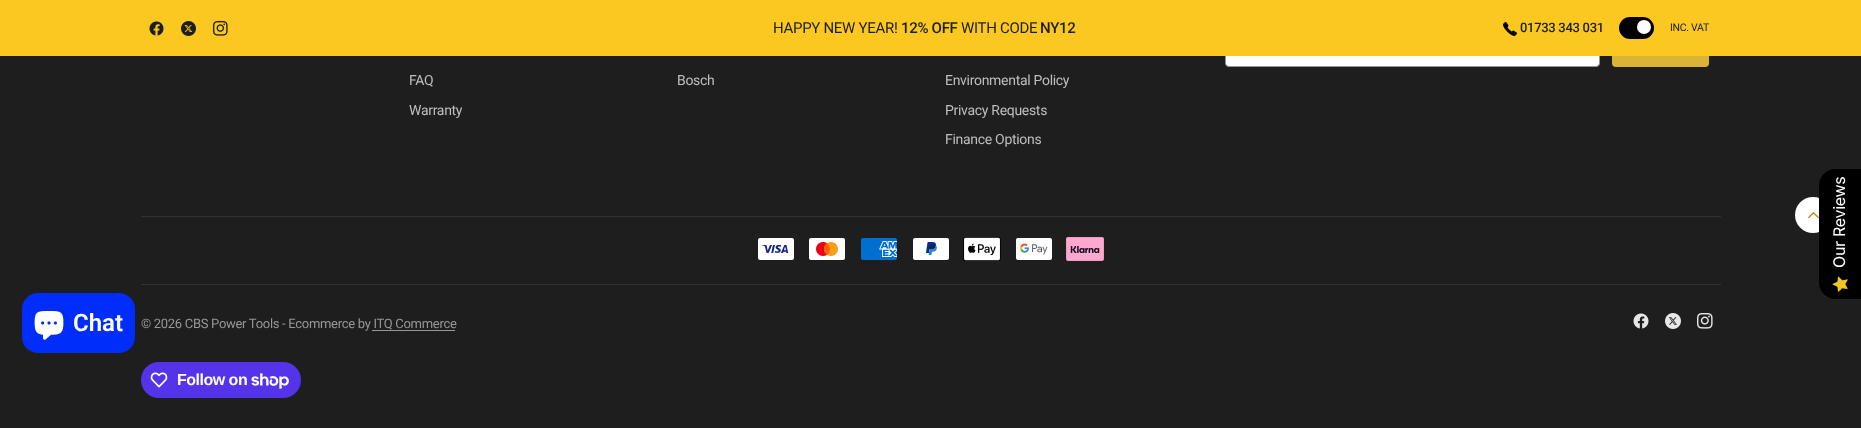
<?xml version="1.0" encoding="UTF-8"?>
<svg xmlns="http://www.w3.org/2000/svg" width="1861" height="428">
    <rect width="100%" height="100%" fill="#1E1E1E"/>
    <rect x="1225.5" y="17.5" width="374" height="49" rx="3.5" fill="#FFFFFF" stroke="#949596"/>
    <rect x="1612" y="17" width="97" height="50" rx="4" fill="#DAB436"/>
    <rect x="0" y="0" width="1861" height="56" fill="#FBC821"/>
    <image x="149" y="21" width="15" height="15" href="img_01.png"/>
    <image x="181" y="21" width="15" height="15" href="img_02.png"/>
    <image x="213" y="21" width="15" height="15" href="img_03.png"/>
    <text x="773" y="33" font-family="Roboto" font-size="15" letter-spacing="-0.3" fill="#1D1D1D">HAPPY NEW YEAR!</text>
    <text x="901" y="33" font-family="Roboto" font-size="15" font-weight="500" letter-spacing="-0.3" fill="#1D1D1D">12% OFF</text>
    <text x="961" y="33" font-family="Roboto" font-size="15" letter-spacing="-0.3" fill="#1D1D1D">WITH CODE</text>
    <text x="1040" y="33" font-family="Roboto" font-size="15" font-weight="500" letter-spacing="-0.3" fill="#1D1D1D">NY12</text>
    <image x="1503" y="22" width="14" height="14" href="img_04.png"/>
    <text x="1520" y="32" font-family="Roboto" font-size="13" font-weight="500" letter-spacing="-0.3" fill="#1D1D1D">01733 343 031</text>
    <rect x="1619" y="17" width="35" height="22" rx="11" fill="#000000"/>
    <circle cx="1644" cy="27" r="7" fill="#FFFFFF"/>
    <text x="1670" y="31" font-family="Roboto" font-size="10.5" letter-spacing="-0.3" fill="#1D1D1D">INC. VAT</text>
    <text x="409" y="85" font-family="Roboto" font-size="14" letter-spacing="-0.3" fill="#BFBFBF">FAQ</text>
    <text x="409" y="115" font-family="Roboto" font-size="14" letter-spacing="-0.3" fill="#BFBFBF">Warranty</text>
    <text x="677" y="85" font-family="Roboto" font-size="14" letter-spacing="-0.3" fill="#BFBFBF">Bosch</text>
    <text x="945" y="85" font-family="Roboto" font-size="14" letter-spacing="-0.3" fill="#BFBFBF">Environmental Policy</text>
    <text x="945" y="115" font-family="Roboto" font-size="14" letter-spacing="-0.3" fill="#BFBFBF">Privacy Requests</text>
    <text x="945" y="144" font-family="Roboto" font-size="14" letter-spacing="-0.3" fill="#BFBFBF">Finance Options</text>
    <rect x="141" y="216" width="1580" height="1" fill="#323232"/>
    <image x="758" y="238" width="36" height="22" href="img_05.png"/>
    <image x="809" y="238" width="36" height="22" href="img_06.png"/>
    <image x="861" y="238" width="36" height="22" href="img_07.png"/>
    <image x="913" y="238" width="36" height="22" href="img_08.png"/>
    <image x="963" y="237" width="38" height="24" href="img_09.png"/>
    <image x="1016" y="238" width="36" height="22" href="img_10.png"/>
    <image x="1066" y="237" width="38" height="24" href="img_11.png"/>
    <rect x="141" y="284" width="1580" height="1" fill="#323232"/>
    <text x="141" y="328" font-family="Roboto" font-size="13" letter-spacing="-0.3" fill="#979797">© 2026 CBS Power Tools - Ecommerce by ITQ Commerce</text>
    <rect x="372" y="330" width="83" height="1" fill="#979797"/>
    <image x="1633" y="313" width="16" height="16" href="img_12.png"/>
    <image x="1665" y="313" width="16" height="16" href="img_13.png"/>
    <image x="1697" y="313" width="16" height="16" href="img_14.png"/>
    <rect x="141" y="362" width="160" height="36" rx="18" fill="#5433EB"/>
    <image x="150" y="372" width="18" height="16" href="img_15.png"/>
    <text x="177" y="385" font-family="Liberation Sans" font-size="16" font-weight="700" letter-spacing="-0.5" fill="#FFFFFF">Follow on</text>
    <image x="251" y="373" width="38" height="16" href="img_16.png"/>
    <circle cx="1813" cy="215" r="18" fill="#FFFFFF"/>
    <image x="1808" y="212" width="11" height="7" href="img_17.png"/>
    <path d="M 1819 283 V 185 C 1819 176 1827 169 1835 169 H 1861 V 299 H 1835 C 1827 299 1819 292 1819 283 Z" fill="#000000"/>
    <text x="1845" y="268" transform="rotate(-90 1845 268)" font-family="Inter" font-size="16" letter-spacing="-0.3" fill="#FFFFFF">Our Reviews</text>
    <image x="1832" y="276" width="16" height="16" href="img_18.png"/>
    <rect x="22" y="293" width="113" height="60" rx="16" fill="#002DFA"/>
    <image x="34" y="311" width="30" height="29" href="img_19.png"/>
    <text x="73" y="331" font-family="Roboto" font-size="24" font-weight="600" fill="#FFFFFF">Chat</text>
</svg>
